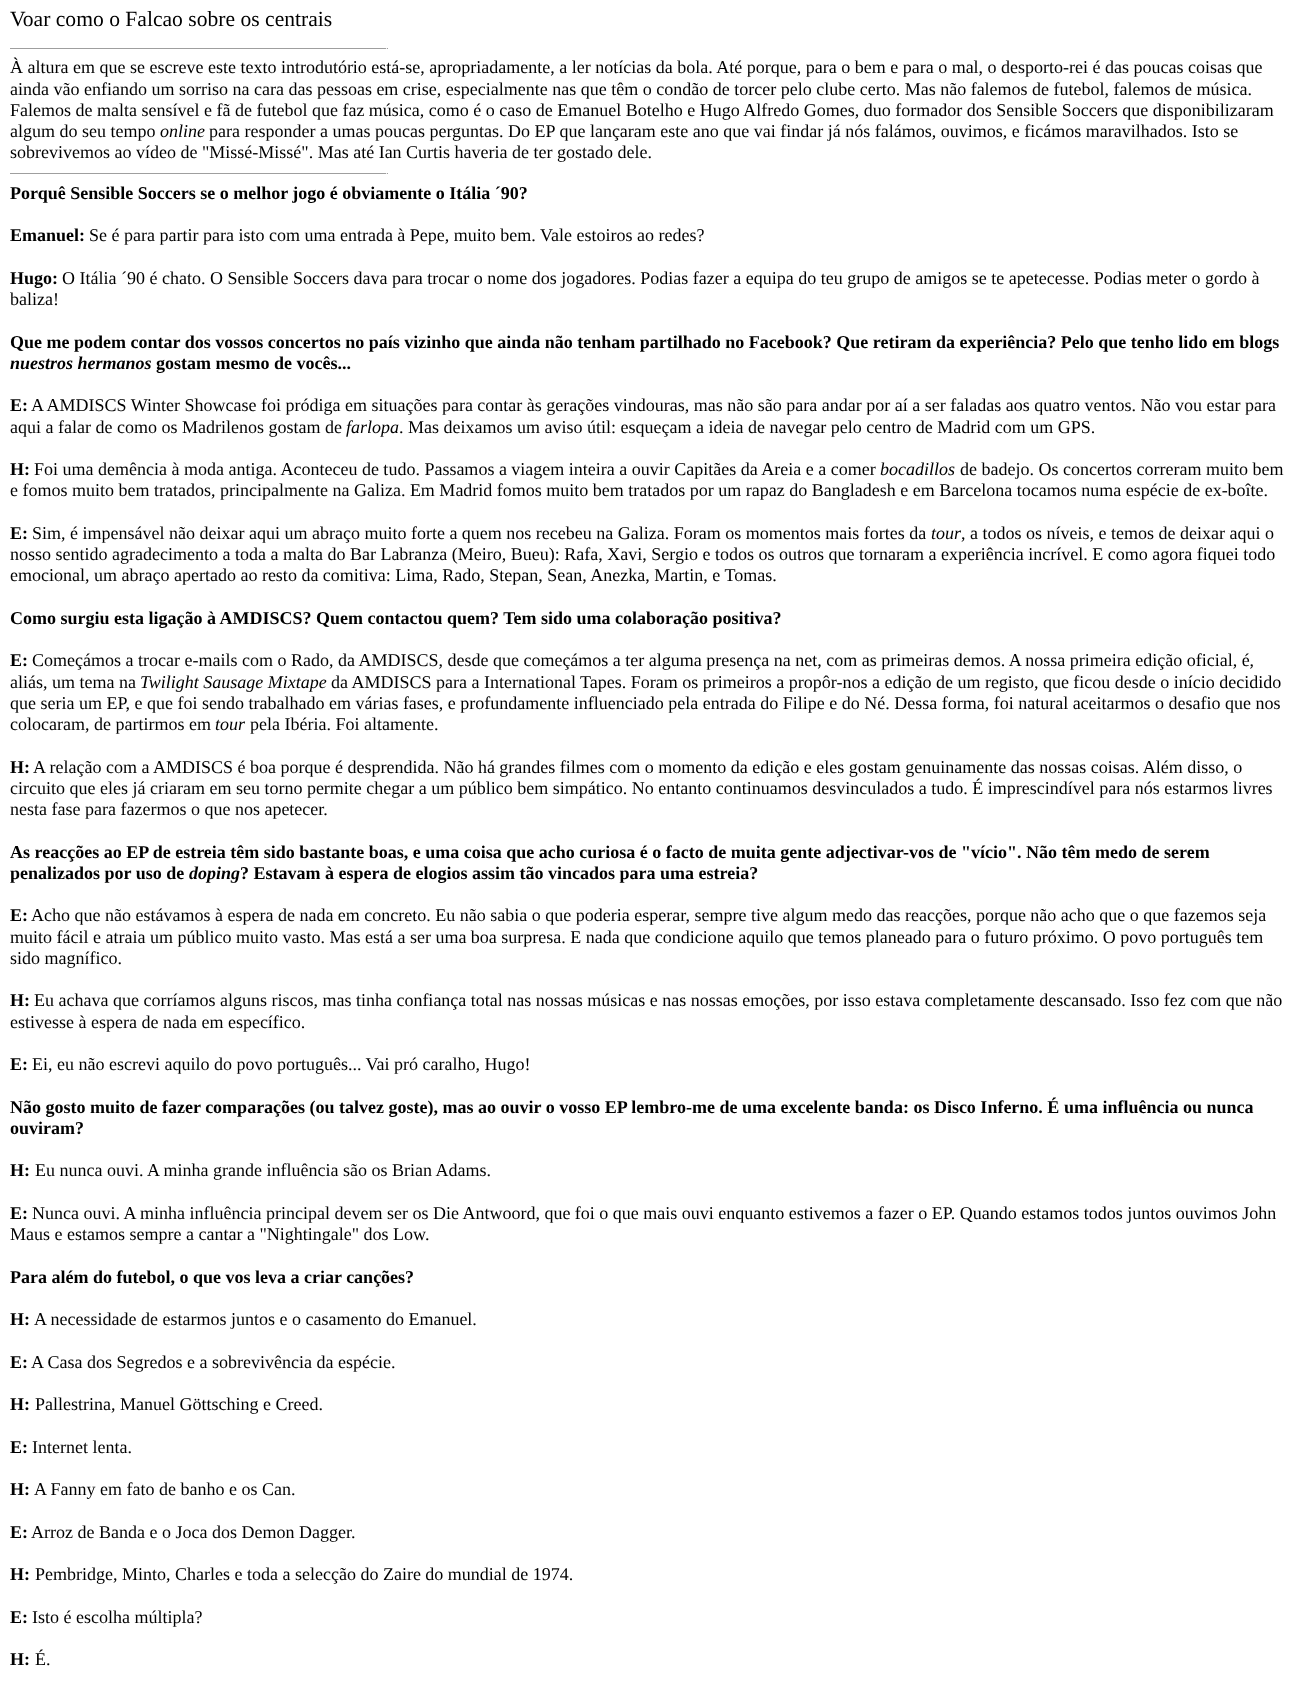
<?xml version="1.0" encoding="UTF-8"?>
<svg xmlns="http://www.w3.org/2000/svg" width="1304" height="1688">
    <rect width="100%" height="100%" fill="#FFFFFF"/>
    <text x="10" y="26" font-family="Liberation Serif" font-size="21.6" fill="#000000">Voar como o Falcao sobre os centrais</text>
    <rect x="10" y="48" width="378" height="1" fill="#9F9F9F"/>
    <rect x="386" y="48" width="1" height="1" fill="#EEEEEE"/>
    <text font-family="Liberation Serif" font-size="18" fill="#000000">
        <tspan x="10" y="73">À altura em que se escreve este texto introdutório está-se, apropriadamente, a ler notícias da bola. Até porque, para o bem e para o mal, o desporto-rei é das poucas coisas que</tspan>
        <tspan x="10" y="95">ainda vão enfiando um sorriso na cara das pessoas em crise, especialmente nas que têm o condão de torcer pelo clube certo. Mas não falemos de futebol, falemos de música.</tspan>
        <tspan x="10" y="116">Falemos de malta sensível e fã de futebol que faz música, como é o caso de Emanuel Botelho e Hugo Alfredo Gomes, duo formador dos Sensible Soccers que disponibilizaram</tspan>
        <tspan x="10" y="137">algum do seu tempo</tspan>
    </text>
    <text x="160" y="137" font-family="Liberation Serif" font-size="18" font-style="italic" fill="#000000">online</text>
    <text x="209" y="137" font-family="Liberation Serif" font-size="18" fill="#000000">para responder a umas poucas perguntas. Do EP que lançaram este ano que vai findar já nós falámos, ouvimos, e ficámos maravilhados. Isto se</text>
    <text x="10" y="158" font-family="Liberation Serif" font-size="18" fill="#000000">sobrevivemos ao vídeo de "Missé-Missé". Mas até Ian Curtis haveria de ter gostado dele.</text>
    <rect x="10" y="173" width="378" height="1" fill="#9F9F9F"/>
    <rect x="386" y="173" width="1" height="1" fill="#EEEEEE"/>
    <text x="10" y="199" font-family="Liberation Serif" font-size="18" font-weight="700" fill="#000000">Porquê Sensible Soccers se o melhor jogo é obviamente o Itália ´90?</text>
    <text x="10" y="241" font-family="Liberation Serif" font-size="18" font-weight="700" fill="#000000">Emanuel:</text>
    <text x="89" y="241" font-family="Liberation Serif" font-size="18" fill="#000000">Se é para partir para isto com uma entrada à Pepe, muito bem. Vale estoiros ao redes?</text>
    <text x="10" y="284" font-family="Liberation Serif" font-size="18" font-weight="700" fill="#000000">Hugo:</text>
    <text x="62" y="284" font-family="Liberation Serif" font-size="18" fill="#000000">O Itália ´90 é chato. O Sensible Soccers dava para trocar o nome dos jogadores. Podias fazer a equipa do teu grupo de amigos se te apetecesse. Podias meter o gordo à</text>
    <text x="10" y="305" font-family="Liberation Serif" font-size="18" fill="#000000">baliza!</text>
    <text x="10" y="348" font-family="Liberation Serif" font-size="18" font-weight="700" fill="#000000">Que me podem contar dos vossos concertos no país vizinho que ainda não tenham partilhado no Facebook? Que retiram da experiência? Pelo que tenho lido em blogs</text>
    <text x="10" y="369" font-family="Liberation Serif" font-size="18" font-weight="700" font-style="italic" fill="#000000">nuestros hermanos</text>
    <text x="156" y="369" font-family="Liberation Serif" font-size="18" font-weight="700" fill="#000000">gostam mesmo de vocês...</text>
    <text x="10" y="411" font-family="Liberation Serif" font-size="18" font-weight="700" fill="#000000">E:</text>
    <text x="31" y="411" font-family="Liberation Serif" font-size="18" fill="#000000">A AMDISCS Winter Showcase foi pródiga em situações para contar às gerações vindouras, mas não são para andar por aí a ser faladas aos quatro ventos. Não vou estar para</text>
    <text x="10" y="433" font-family="Liberation Serif" font-size="18" fill="#000000">aqui a falar de como os Madrilenos gostam de</text>
    <text x="346" y="433" font-family="Liberation Serif" font-size="18" font-style="italic" fill="#000000">farlopa</text>
    <text x="399" y="433" font-family="Liberation Serif" font-size="18" fill="#000000">. Mas deixamos um aviso útil: esqueçam a ideia de navegar pelo centro de Madrid com um GPS.</text>
    <text x="10" y="475" font-family="Liberation Serif" font-size="18" font-weight="700" fill="#000000">H:</text>
    <text x="34" y="475" font-family="Liberation Serif" font-size="18" fill="#000000">Foi uma demência à moda antiga. Aconteceu de tudo. Passamos a viagem inteira a ouvir Capitães da Areia e a comer</text>
    <text x="880" y="475" font-family="Liberation Serif" font-size="18" font-style="italic" fill="#000000">bocadillos</text>
    <text x="960" y="475" font-family="Liberation Serif" font-size="18" fill="#000000">de badejo. Os concertos correram muito bem</text>
    <text x="10" y="496" font-family="Liberation Serif" font-size="18" fill="#000000">e fomos muito bem tratados, principalmente na Galiza. Em Madrid fomos muito bem tratados por um rapaz do Bangladesh e em Barcelona tocamos numa espécie de ex-boîte.</text>
    <text x="10" y="539" font-family="Liberation Serif" font-size="18" font-weight="700" fill="#000000">E:</text>
    <text x="32" y="539" font-family="Liberation Serif" font-size="18" fill="#000000">Sim, é impensável não deixar aqui um abraço muito forte a quem nos recebeu na Galiza. Foram os momentos mais fortes da</text>
    <text x="931" y="539" font-family="Liberation Serif" font-size="18" font-style="italic" fill="#000000">tour</text>
    <text x="961" y="539" font-family="Liberation Serif" font-size="18" fill="#000000">, a todos os níveis, e temos de deixar aqui o</text>
    <text font-family="Liberation Serif" font-size="18" fill="#000000">
        <tspan x="10" y="560">nosso sentido agradecimento a toda a malta do Bar Labranza (Meiro, Bueu): Rafa, Xavi, Sergio e todos os outros que tornaram a experiência incrível. E como agora fiquei todo</tspan>
        <tspan x="10" y="581">emocional, um abraço apertado ao resto da comitiva: Lima, Rado, Stepan, Sean, Anezka, Martin, e Tomas.</tspan>
    </text>
    <text x="10" y="624" font-family="Liberation Serif" font-size="18" font-weight="700" fill="#000000">Como surgiu esta ligação à AMDISCS? Quem contactou quem? Tem sido uma colaboração positiva?</text>
    <text x="10" y="666" font-family="Liberation Serif" font-size="18" font-weight="700" fill="#000000">E:</text>
    <text x="32" y="666" font-family="Liberation Serif" font-size="18" fill="#000000">Começámos a trocar e-mails com o Rado, da AMDISCS, desde que começámos a ter alguma presença na net, com as primeiras demos. A nossa primeira edição oficial, é,</text>
    <text x="10" y="688" font-family="Liberation Serif" font-size="18" fill="#000000">aliás, um tema na</text>
    <text x="140" y="688" font-family="Liberation Serif" font-size="18" font-style="italic" fill="#000000">Twilight Sausage Mixtape</text>
    <text x="331" y="688" font-family="Liberation Serif" font-size="18" fill="#000000">da AMDISCS para a International Tapes. Foram os primeiros a propôr-nos a edição de um registo, que ficou desde o início decidido</text>
    <text font-family="Liberation Serif" font-size="18" fill="#000000">
        <tspan x="10" y="709">que seria um EP, e que foi sendo trabalhado em várias fases, e profundamente influenciado pela entrada do Filipe e do Né. Dessa forma, foi natural aceitarmos o desafio que nos</tspan>
        <tspan x="10" y="730">colocaram, de partirmos em</tspan>
    </text>
    <text x="215" y="730" font-family="Liberation Serif" font-size="18" font-style="italic" fill="#000000">tour</text>
    <text x="250" y="730" font-family="Liberation Serif" font-size="18" fill="#000000">pela Ibéria. Foi altamente.</text>
    <text x="10" y="773" font-family="Liberation Serif" font-size="18" font-weight="700" fill="#000000">H:</text>
    <text x="33" y="773" font-family="Liberation Serif" font-size="18" fill="#000000">A relação com a AMDISCS é boa porque é desprendida. Não há grandes filmes com o momento da edição e eles gostam genuinamente das nossas coisas. Além disso, o</text>
    <text font-family="Liberation Serif" font-size="18" fill="#000000">
        <tspan x="10" y="794">circuito que eles já criaram em seu torno permite chegar a um público bem simpático. No entanto continuamos desvinculados a tudo. É imprescindível para nós estarmos livres</tspan>
        <tspan x="10" y="815">nesta fase para fazermos o que nos apetecer.</tspan>
    </text>
    <text font-family="Liberation Serif" font-size="18" font-weight="700" fill="#000000">
        <tspan x="10" y="858">As reacções ao EP de estreia têm sido bastante boas, e uma coisa que acho curiosa é o facto de muita gente adjectivar-vos de "vício". Não têm medo de serem</tspan>
        <tspan x="10" y="879">penalizados por uso de</tspan>
    </text>
    <text x="189" y="879" font-family="Liberation Serif" font-size="18" font-weight="700" font-style="italic" fill="#000000">doping</text>
    <text x="240" y="879" font-family="Liberation Serif" font-size="18" font-weight="700" fill="#000000">? Estavam à espera de elogios assim tão vincados para uma estreia?</text>
    <text x="10" y="921" font-family="Liberation Serif" font-size="18" font-weight="700" fill="#000000">E:</text>
    <text x="31" y="921" font-family="Liberation Serif" font-size="18" fill="#000000">Acho que não estávamos à espera de nada em concreto. Eu não sabia o que poderia esperar, sempre tive algum medo das reacções, porque não acho que o que fazemos seja</text>
    <text font-family="Liberation Serif" font-size="18" fill="#000000">
        <tspan x="10" y="943">muito fácil e atraia um público muito vasto. Mas está a ser uma boa surpresa. E nada que condicione aquilo que temos planeado para o futuro próximo. O povo português tem</tspan>
        <tspan x="10" y="964">sido magnífico.</tspan>
    </text>
    <text x="10" y="1006" font-family="Liberation Serif" font-size="18" font-weight="700" fill="#000000">H:</text>
    <text x="34" y="1006" font-family="Liberation Serif" font-size="18" fill="#000000">Eu achava que corríamos alguns riscos, mas tinha confiança total nas nossas músicas e nas nossas emoções, por isso estava completamente descansado. Isso fez com que não</text>
    <text x="10" y="1028" font-family="Liberation Serif" font-size="18" fill="#000000">estivesse à espera de nada em específico.</text>
    <text x="10" y="1070" font-family="Liberation Serif" font-size="18" font-weight="700" fill="#000000">E:</text>
    <text x="32" y="1070" font-family="Liberation Serif" font-size="18" fill="#000000">Ei, eu não escrevi aquilo do povo português... Vai pró caralho, Hugo!</text>
    <text font-family="Liberation Serif" font-size="18" font-weight="700" fill="#000000">
        <tspan x="10" y="1113">Não gosto muito de fazer comparações (ou talvez goste), mas ao ouvir o vosso EP lembro-me de uma excelente banda: os Disco Inferno. É uma influência ou nunca</tspan>
        <tspan x="10" y="1134">ouviram?</tspan>
    </text>
    <text x="10" y="1176" font-family="Liberation Serif" font-size="18" font-weight="700" fill="#000000">H:</text>
    <text x="35" y="1176" font-family="Liberation Serif" font-size="18" fill="#000000">Eu nunca ouvi. A minha grande influência são os Brian Adams.</text>
    <text x="10" y="1219" font-family="Liberation Serif" font-size="18" font-weight="700" fill="#000000">E:</text>
    <text x="32" y="1219" font-family="Liberation Serif" font-size="18" fill="#000000">Nunca ouvi. A minha influência principal devem ser os Die Antwoord, que foi o que mais ouvi enquanto estivemos a fazer o EP. Quando estamos todos juntos ouvimos John</text>
    <text x="10" y="1240" font-family="Liberation Serif" font-size="18" fill="#000000">Maus e estamos sempre a cantar a "Nightingale" dos Low.</text>
    <text x="10" y="1283" font-family="Liberation Serif" font-size="18" font-weight="700" fill="#000000">Para além do futebol, o que vos leva a criar canções?</text>
    <text x="10" y="1325" font-family="Liberation Serif" font-size="18" font-weight="700" fill="#000000">H:</text>
    <text x="34" y="1325" font-family="Liberation Serif" font-size="18" fill="#000000">A necessidade de estarmos juntos e o casamento do Emanuel.</text>
    <text x="10" y="1368" font-family="Liberation Serif" font-size="18" font-weight="700" fill="#000000">E:</text>
    <text x="31" y="1368" font-family="Liberation Serif" font-size="18" fill="#000000">A Casa dos Segredos e a sobrevivência da espécie.</text>
    <text x="10" y="1410" font-family="Liberation Serif" font-size="18" font-weight="700" fill="#000000">H:</text>
    <text x="35" y="1410" font-family="Liberation Serif" font-size="18" fill="#000000">Pallestrina, Manuel Göttsching e Creed.</text>
    <text x="10" y="1453" font-family="Liberation Serif" font-size="18" font-weight="700" fill="#000000">E:</text>
    <text x="32" y="1453" font-family="Liberation Serif" font-size="18" fill="#000000">Internet lenta.</text>
    <text x="10" y="1495" font-family="Liberation Serif" font-size="18" font-weight="700" fill="#000000">H:</text>
    <text x="34" y="1495" font-family="Liberation Serif" font-size="18" fill="#000000">A Fanny em fato de banho e os Can.</text>
    <text x="10" y="1538" font-family="Liberation Serif" font-size="18" font-weight="700" fill="#000000">E:</text>
    <text x="31" y="1538" font-family="Liberation Serif" font-size="18" fill="#000000">Arroz de Banda e o Joca dos Demon Dagger.</text>
    <text x="10" y="1580" font-family="Liberation Serif" font-size="18" font-weight="700" fill="#000000">H:</text>
    <text x="35" y="1580" font-family="Liberation Serif" font-size="18" fill="#000000">Pembridge, Minto, Charles e toda a selecção do Zaire do mundial de 1974.</text>
    <text x="10" y="1623" font-family="Liberation Serif" font-size="18" font-weight="700" fill="#000000">E:</text>
    <text x="32" y="1623" font-family="Liberation Serif" font-size="18" fill="#000000">Isto é escolha múltipla?</text>
    <text x="10" y="1665" font-family="Liberation Serif" font-size="18" font-weight="700" fill="#000000">H:</text>
    <text x="35" y="1665" font-family="Liberation Serif" font-size="18" fill="#000000">É.</text>
</svg>
